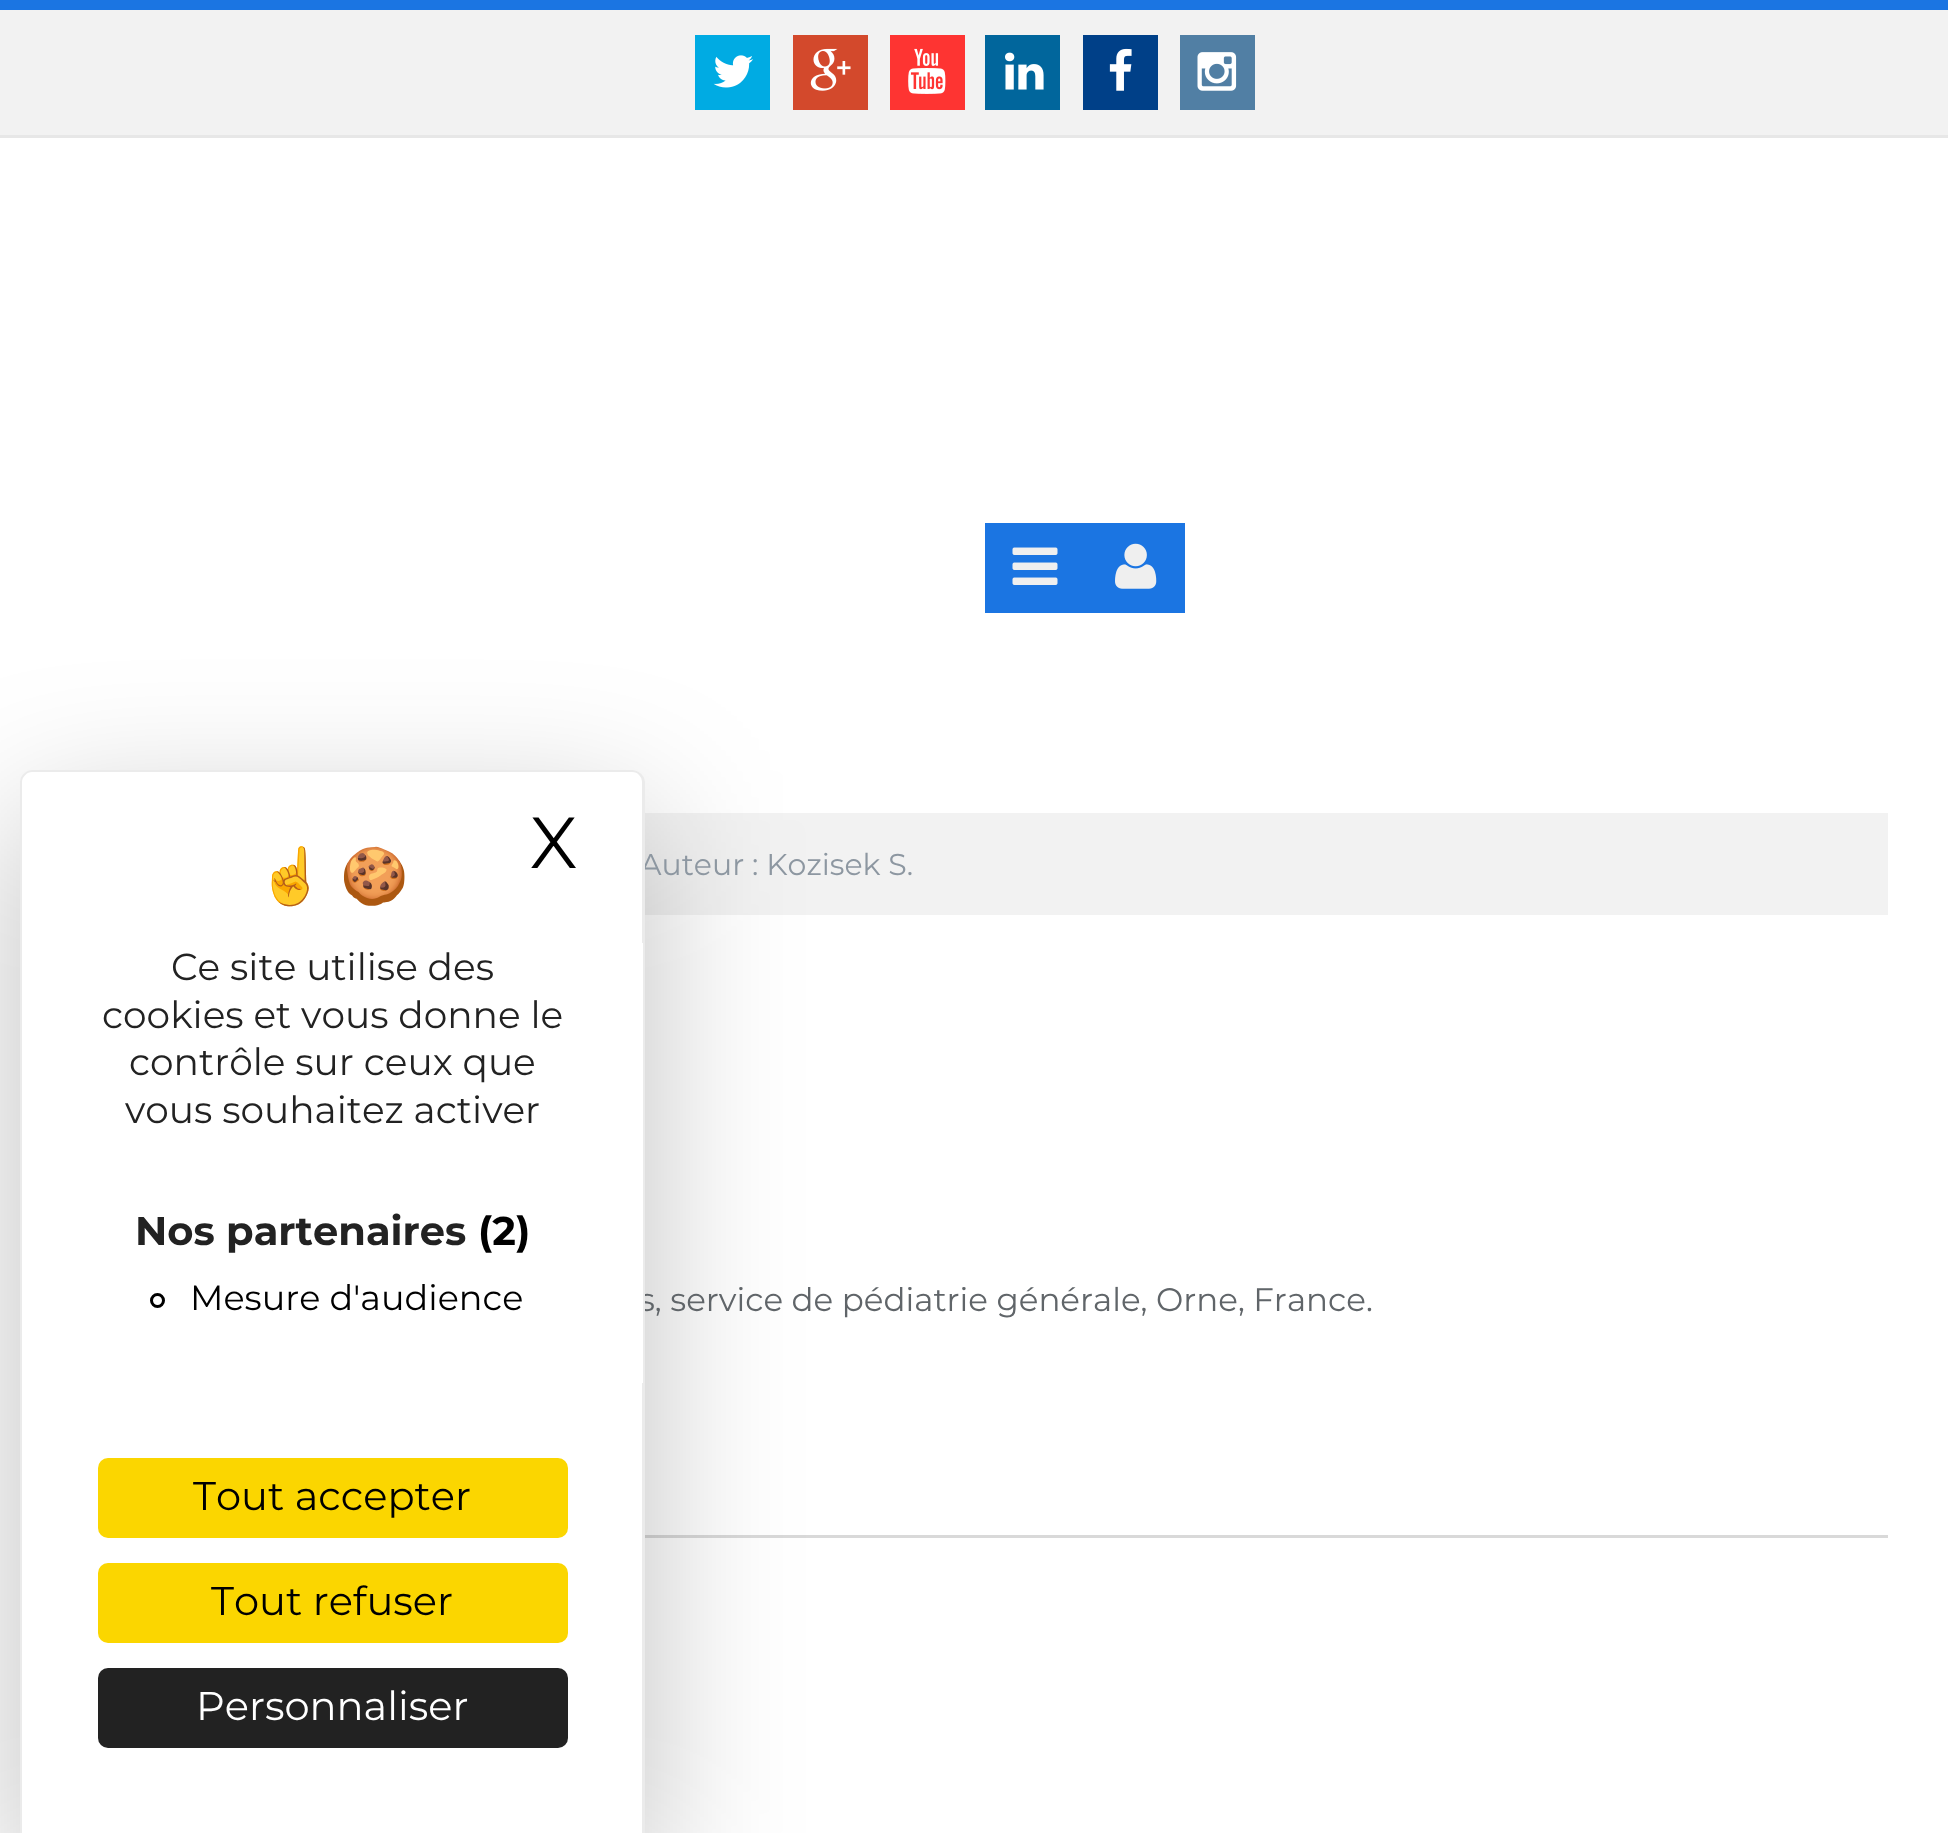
<?xml version="1.0" encoding="UTF-8"?>
<svg xmlns="http://www.w3.org/2000/svg" width="1948" height="1833">
    <style>*{font-kerning:none!important;font-variant-ligatures:none!important}</style>
    <defs>
        <filter id="blur1" x="-50%" y="-200%" width="200%" height="500%"><feGaussianBlur stdDeviation="75"/></filter>
    </defs>
    <rect width="100%" height="100%" fill="#FFFFFF"/>
    <rect x="645" y="813" width="1243" height="102" fill="#F2F2F2"/>
    <rect x="645" y="1535" width="1243" height="3" fill="#D9D9D9"/>
    <rect x="20" y="820" width="625" height="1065" rx="13" fill="#000000" fill-opacity="0.25" filter="url(#blur1)"/>
    <text x="640" y="875" font-family="Montserrat" font-size="30" fill="#8D97A1">Auteur : Kozisek S.</text>
    <text x="639" y="1311" font-family="Montserrat" font-size="32.5" fill="#606569">s, service de pédiatrie générale, Orne, France.</text>
    <path d="M 33 770 H 632 C 639 770 645 776 645 783 V 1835 H 20 V 783 C 20 776 26 770 33 770 Z" fill="#FFFFFF"/>
    <path d="M 32 770 H 632 C 639 770 645 776 645 782 V 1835 H 20 V 782 C 20 776 26 770 32 770 Z M 32 772 H 632 C 638 772 642 777 642 782 V 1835 H 22 V 782 C 22 777 27 772 32 772 Z" fill="#EBEBEB" fill-rule="evenodd"/>
    <text x="257" y="895" font-family="Noto Color Emoji" font-size="55" fill="#222222">☝️</text>
    <text x="340" y="895" font-family="Noto Color Emoji" font-size="55" fill="#222222">🍪</text>
    <text x="530" y="868" font-family="Montserrat" font-size="72" fill="#000000">X</text>
    <rect x="642" y="943" width="1" height="440" fill="#FFFFFF"/>
    <text x="171" y="980" font-family="Montserrat" font-size="37.5" fill="#222222">Ce site utilise des</text>
    <text x="102" y="1028" font-family="Montserrat" font-size="37.5" fill="#222222">cookies et vous donne le</text>
    <text x="129" y="1075" font-family="Montserrat" font-size="37.5" fill="#222222">contrôle sur ceux que</text>
    <text x="125" y="1123" font-family="Montserrat" font-size="37.5" fill="#222222">vous souhaitez activer</text>
    <text x="135" y="1245" font-family="Montserrat" font-size="40" font-weight="700" fill="#222222">Nos partenaires</text>
    <text x="478" y="1245" font-family="Montserrat" font-size="40" font-weight="700" fill="#000000">(2)</text>
    <circle cx="157.5" cy="1300.5" r="6" fill="none" stroke="#000000" stroke-width="3"/>
    <text x="190" y="1310" font-family="Montserrat" font-size="35" fill="#000000">Mesure d'audience</text>
    <rect x="98" y="1458" width="470" height="80" rx="10" fill="#FBD600"/>
    <text x="193" y="1510" font-family="Montserrat" font-size="40" fill="#000000">Tout accepter</text>
    <rect x="98" y="1563" width="470" height="80" rx="10" fill="#FBD600"/>
    <text x="211" y="1615" font-family="Montserrat" font-size="40" fill="#000000">Tout refuser</text>
    <rect x="98" y="1668" width="470" height="80" rx="10" fill="#222222"/>
    <text x="196" y="1720" font-family="Montserrat" font-size="40" fill="#FFFFFF">Personnaliser</text>
    <rect x="0" y="10" width="1948" height="125" fill="#F2F2F2"/>
    <rect x="0" y="0" width="1948" height="10" fill="#1B75E2"/>
    <rect x="0" y="135" width="1948" height="3" fill="#E7E7E7"/>
    <rect x="695" y="35" width="75" height="75" fill="#00ABE3"/>
    <image x="713" y="55" width="40" height="33" href="img_01.png"/>
    <rect x="793" y="35" width="75" height="75" fill="#D3492C"/>
    <image x="810" y="48" width="41" height="43" href="img_02.png"/>
    <rect x="890" y="35" width="75" height="75" fill="#FE3432"/>
    <image x="908" y="48" width="38" height="46" href="img_03.png"/>
    <rect x="985" y="35" width="75" height="75" fill="#01669C"/>
    <image x="1005" y="52" width="39" height="38" href="img_04.png"/>
    <rect x="1083" y="35" width="75" height="75" fill="#004088"/>
    <image x="1109" y="48" width="23" height="43" href="img_05.png"/>
    <rect x="1180" y="35" width="75" height="75" fill="#517FA4"/>
    <image x="1197" y="52" width="40" height="39" href="img_06.png"/>
    <rect x="985" y="523" width="200" height="90" fill="#1B75E2"/>
    <image x="1012" y="547" width="46" height="38" href="img_07.png"/>
    <image x="1115" y="543" width="42" height="46" href="img_08.png"/>
</svg>
